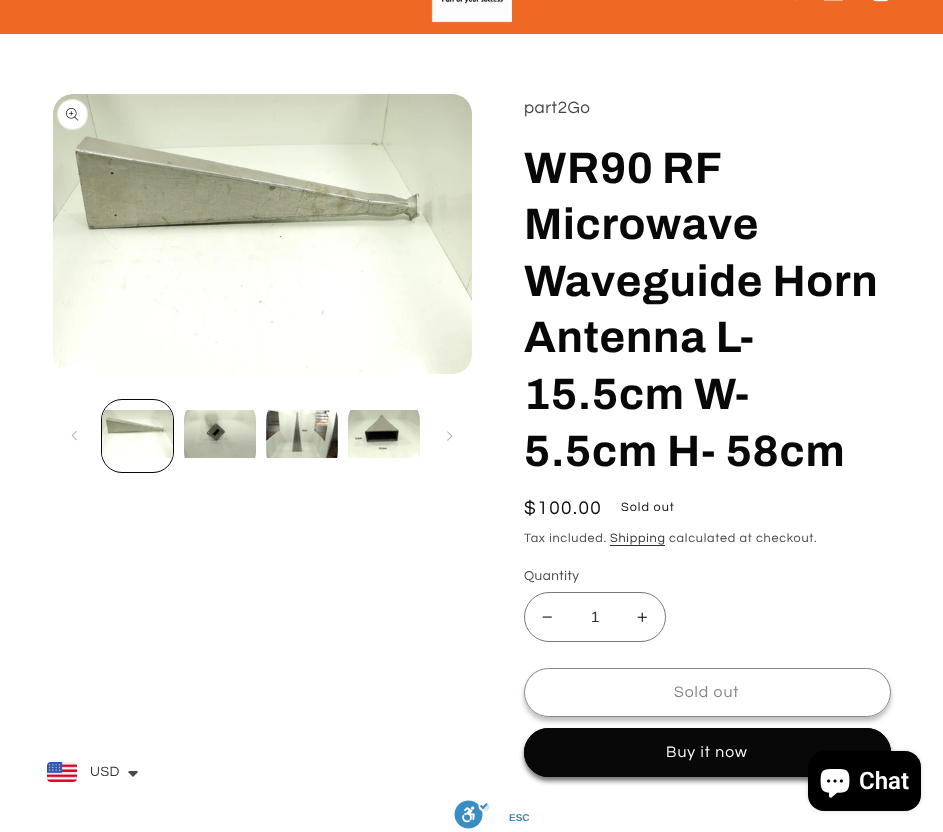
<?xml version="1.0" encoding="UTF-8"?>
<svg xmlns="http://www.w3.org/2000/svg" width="943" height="832">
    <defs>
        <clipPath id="clip1"><path d="M 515 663 H 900 V 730 H 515 Z M 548.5 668 H 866.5 C 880 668 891 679 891 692.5 C 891 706 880 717 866.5 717 H 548.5 C 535 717 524 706 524 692.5 C 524 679 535 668 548.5 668 Z" clip-rule="evenodd"/></clipPath>
        <filter id="blur1" x="-50%" y="-200%" width="200%" height="500%"><feGaussianBlur stdDeviation="2.5"/></filter>
    </defs>
    <rect width="100%" height="100%" fill="#FFFFFF"/>
    <rect x="0" y="0" width="943" height="34" fill="#EF6925"/>
    <image x="431" y="0" width="81" height="23" href="img_01.png"/>
    <rect x="796" y="0" width="1" height="1" fill="#F28751"/>
    <image x="824" y="0" width="19" height="1" href="img_02.png"/>
    <image x="873" y="0" width="16" height="2" href="img_03.png"/>
    <image x="53" y="94" width="419" height="280" href="img_04.png"/>
    <circle cx="72.5" cy="114.5" r="15.5" fill="#FFFFFF"/>
    <circle cx="72.5" cy="114.5" r="15" fill="none" stroke="#080808" stroke-opacity="0.1"/>
    <image x="66" y="108" width="13" height="13" href="img_05.png"/>
    <image x="71" y="431" width="6" height="10" href="img_06.png"/>
    <rect x="101.5" y="399.5" width="72" height="73" rx="20.5" fill="none" stroke="#080808"/>
    <image x="102" y="410" width="71" height="48" href="img_07.png"/>
    <image x="184" y="410" width="72" height="48" href="img_08.png"/>
    <image x="266" y="410" width="72" height="48" href="img_09.png"/>
    <image x="348" y="410" width="72" height="48" href="img_10.png"/>
    <image x="447" y="431" width="6" height="10" href="img_11.png"/>
    <text x="524" y="113" font-family="Questrial" font-size="17" letter-spacing="0.5" fill="#464646">part2Go</text>
    <text font-family="Archivo" font-size="44" font-weight="700" letter-spacing="0.7" fill="#080808">
        <tspan x="524" y="183" word-spacing="-1">WR90 RF</tspan>
        <tspan x="524" y="239">Microwave</tspan>
        <tspan x="524" y="296">Waveguide Horn</tspan>
        <tspan x="524" y="352">Antenna L-</tspan>
        <tspan x="524" y="409">15.5cm W-</tspan>
        <tspan x="524" y="466">5.5cm H- 58cm</tspan>
    </text>
    <text x="524" y="514" font-family="Questrial" font-size="19" letter-spacing="1.5" fill="#080808">$100.00</text>
    <text x="621" y="511" font-family="Questrial" font-size="12.6" letter-spacing="1" fill="#080808">Sold out</text>
    <text x="524" y="542" font-family="Questrial" font-size="12.6" letter-spacing="0.75" fill="#464646">Tax included.</text>
    <text x="610" y="542" font-family="Questrial" font-size="12.6" letter-spacing="0.75" fill="#2D2D2D">Shipping</text>
    <rect x="610" y="545" width="55" height="1" fill="#2D2D2D"/>
    <text x="669" y="542" font-family="Questrial" font-size="12.6" letter-spacing="0.75" fill="#464646">calculated at checkout.</text>
    <text x="524" y="580" font-family="Questrial" font-size="13.5" letter-spacing="0.5" fill="#464646">Quantity</text>
    <image x="542" y="616" width="10" height="2" href="img_12.png"/>
    <image x="637" y="612" width="10" height="10" href="img_13.png"/>
    <rect x="524.5" y="592.5" width="141" height="49" rx="24.5" fill="none" stroke="#777777"/>
    <text x="591" y="622" font-family="Liberation Sans" font-size="15" fill="#2D2D2D">1</text>
    <g clip-path="url(#clip1)">
        <rect x="524" y="672" width="367" height="49" rx="24.5" fill="#838383" fill-opacity="0.55" filter="url(#blur1)"/>
    </g>
    <rect x="524.5" y="668.5" width="366" height="48" rx="24" fill="none" stroke="#FFFFFF"/>
    <rect x="524.5" y="668.5" width="366" height="48" rx="24" fill="none" stroke="#848484"/>
    <text x="674" y="697" font-family="Questrial" font-size="15.75" letter-spacing="1" fill="#848484">Sold out</text>
    <rect x="524" y="732" width="367" height="49" rx="24.5" fill="#080808" fill-opacity="0.55" filter="url(#blur1)"/>
    <rect x="524" y="728" width="367" height="49" rx="24.5" fill="#080808"/>
    <rect x="524.5" y="728.5" width="366" height="48" rx="24" fill="none" stroke="#080808"/>
    <text x="666" y="757" font-family="Questrial" font-size="15.75" letter-spacing="1" fill="#FFFFFF">Buy it now</text>
    <image x="47" y="762" width="30" height="20" href="img_14.png"/>
    <text x="90" y="776" font-family="Questrial" font-size="14" letter-spacing="0.5" fill="#333333">USD</text>
    <path d="M 130 771 C 129 771 128.5 771.5 128 772 L 133 777 L 138 772 L 137 771 Z" fill="#474942"/>
    <rect x="808" y="751" width="113" height="60" rx="16" fill="#000000" fill-opacity="0.15" filter="url(#blur1)"/>
    <rect x="808" y="751" width="113" height="60" rx="16" fill="#000000"/>
    <image x="820" y="769" width="30" height="29" href="img_15.png"/>
    <text x="859" y="789" font-family="Roboto" font-size="24" font-weight="600" fill="#FFFFFF">Chat</text>
    <image x="454" y="800" width="36" height="29" href="img_16.png"/>
    <text x="509" y="821" font-family="Liberation Sans" font-size="10" font-weight="700" fill="#3A8DC2">ESC</text>
</svg>
